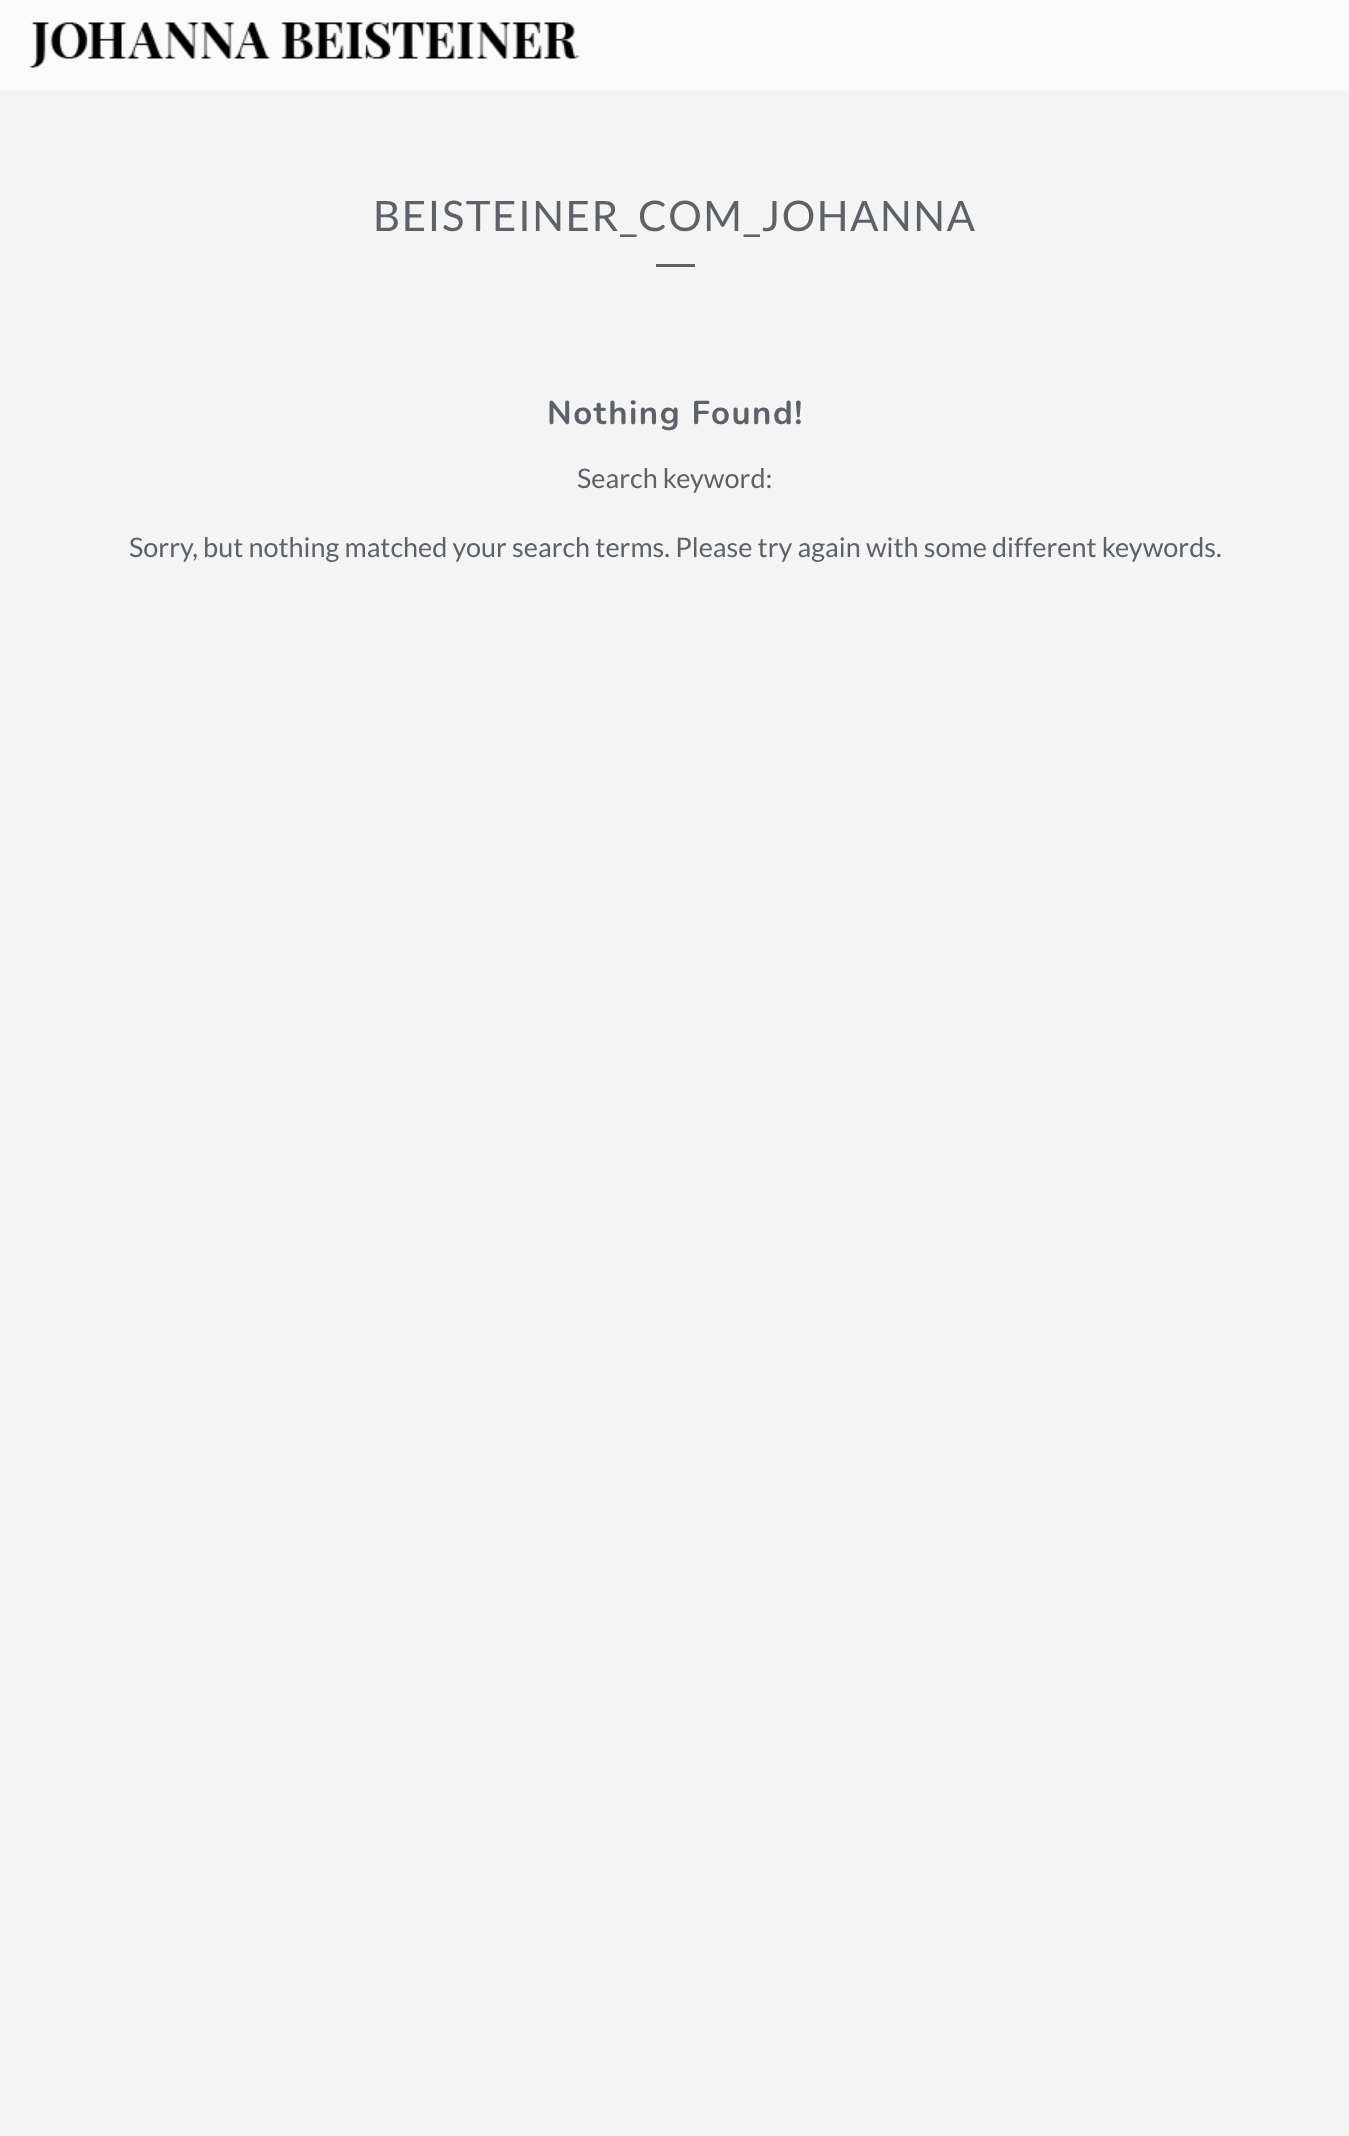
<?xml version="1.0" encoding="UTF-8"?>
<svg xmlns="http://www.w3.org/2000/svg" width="1349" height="2136">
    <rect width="100%" height="100%" fill="#F4F4F4"/>
    <rect x="0" y="0" width="1349" height="90" fill="#FAFAFA"/>
    <image x="29" y="22" width="551" height="46" href="img_01.png"/>
    <text x="373" y="231" font-family="Lato" font-size="42" letter-spacing="1.5" fill="#5B626A">BEISTEINER_COM_JOHANNA</text>
    <rect x="656" y="264" width="39" height="3" fill="#5B626A"/>
    <text x="547" y="424" font-family="Nunito" font-size="33" font-weight="700" letter-spacing="1.5" fill="#5B626A">Nothing Found!</text>
    <text x="577" y="488" font-family="Lato" font-size="27" fill="#5B626A">Search keyword:</text>
    <text x="129" y="557" font-family="Lato" font-size="27" fill="#5B626A">Sorry, but nothing matched your search terms. Please try again with some different keywords.</text>
</svg>
